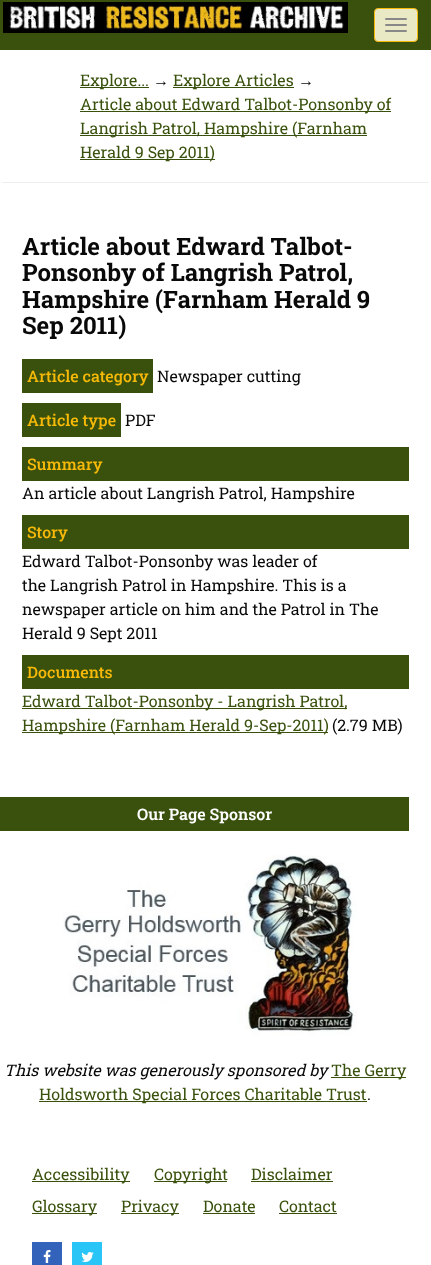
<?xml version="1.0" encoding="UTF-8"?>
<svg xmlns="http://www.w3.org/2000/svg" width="431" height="1265">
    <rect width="100%" height="100%" fill="#FFFFFF"/>
    <rect x="0" y="0" width="431" height="50" fill="#39510C"/>
    <image x="3" y="2" width="345" height="31" href="img_01.png"/>
    <rect x="374.5" y="8.5" width="43" height="33" rx="3.5" fill="#E9E9C5" stroke="#F7B908"/>
    <rect x="385" y="18" width="22" height="2" rx="1" fill="#888888"/>
    <rect x="385" y="24" width="22" height="2" rx="1" fill="#888888"/>
    <rect x="385" y="30" width="22" height="2" rx="1" fill="#888888"/>
    <rect x="2" y="182" width="427" height="1" fill="#EEEEEE"/>
    <rect x="80" y="87" width="69" height="1" fill="#39510C"/>
    <text x="80" y="86" font-family="Roboto Slab" font-size="16" fill="#39510C">Explore...</text>
    <text x="153" y="86" font-family="Liberation Serif" font-size="16" fill="#090909">→</text>
    <rect x="173" y="87" width="121" height="1" fill="#39510C"/>
    <text x="173" y="86" font-family="Roboto Slab" font-size="16" fill="#39510C">Explore Articles</text>
    <text x="298" y="86" font-family="Liberation Serif" font-size="16" fill="#090909">→</text>
    <rect x="80" y="111" width="311" height="1" fill="#39510C"/>
    <text x="80" y="110" font-family="Roboto Slab" font-size="16" fill="#39510C">Article about Edward Talbot-Ponsonby of</text>
    <rect x="80" y="135" width="287" height="1" fill="#39510C"/>
    <text x="80" y="134" font-family="Roboto Slab" font-size="16" fill="#39510C">Langrish Patrol, Hampshire (Farnham</text>
    <rect x="80" y="159" width="135" height="1" fill="#39510C"/>
    <text x="80" y="158" font-family="Roboto Slab" font-size="16" fill="#39510C">Herald 9 Sep 2011)</text>
    <text font-family="Roboto Slab" font-size="24" font-weight="700" fill="#090909">
        <tspan x="22" y="255">Article about Edward Talbot-</tspan>
        <tspan x="22" y="281">Ponsonby of Langrish Patrol,</tspan>
        <tspan x="22" y="308">Hampshire (Farnham Herald 9</tspan>
        <tspan x="22" y="334">Sep 2011)</tspan>
    </text>
    <rect x="22" y="359" width="131" height="34" fill="#39510C"/>
    <text x="27" y="382" font-family="Roboto Slab" font-size="16" font-weight="500" fill="#F7B908">Article category</text>
    <text x="157" y="382" font-family="Roboto Slab" font-size="16" fill="#090909">Newspaper cutting</text>
    <rect x="22" y="403" width="99" height="34" fill="#39510C"/>
    <text x="27" y="426" font-family="Roboto Slab" font-size="16" font-weight="500" fill="#F7B908">Article type</text>
    <text x="125" y="426" font-family="Roboto Slab" font-size="16" fill="#090909">PDF</text>
    <rect x="22" y="447" width="387" height="34" fill="#39510C"/>
    <text x="27" y="470" font-family="Roboto Slab" font-size="16" font-weight="500" fill="#F7B908">Summary</text>
    <text x="22" y="499" font-family="Roboto Slab" font-size="16" fill="#090909">An article about Langrish Patrol, Hampshire</text>
    <rect x="22" y="515" width="387" height="34" fill="#39510C"/>
    <text x="27" y="538" font-family="Roboto Slab" font-size="16" font-weight="500" fill="#F7B908">Story</text>
    <text font-family="Roboto Slab" font-size="16" fill="#090909">
        <tspan x="22" y="567">Edward Talbot-Ponsonby was leader of</tspan>
        <tspan x="22" y="591">the Langrish Patrol in Hampshire. This is a</tspan>
        <tspan x="22" y="615">newspaper article on him and the Patrol in The</tspan>
        <tspan x="22" y="639">Herald 9 Sept 2011</tspan>
    </text>
    <rect x="22" y="655" width="387" height="34" fill="#39510C"/>
    <text x="27" y="678" font-family="Roboto Slab" font-size="16" font-weight="500" fill="#F7B908">Documents</text>
    <rect x="22" y="708" width="325" height="1" fill="#39510C"/>
    <text x="22" y="707" font-family="Roboto Slab" font-size="16" fill="#39510C">Edward Talbot-Ponsonby - Langrish Patrol,</text>
    <rect x="22" y="732" width="306" height="1" fill="#39510C"/>
    <text x="22" y="731" font-family="Roboto Slab" font-size="16" fill="#39510C">Hampshire (Farnham Herald 9-Sep-2011)</text>
    <text x="332" y="731" font-family="Roboto Slab" font-size="16" fill="#090909">(2.79 MB)</text>
    <rect x="0" y="797" width="409" height="34" fill="#39510C"/>
    <text x="137" y="820" font-family="Roboto Slab" font-size="16" font-weight="600" fill="#FFFFFF">Our Page Sponsor</text>
    <image x="63" y="855" width="294" height="180" href="img_02.png"/>
    <text x="4" y="1076" font-family="Roboto Slab" font-size="16" font-style="italic" fill="#090909">This website was generously sponsored by</text>
    <rect x="331" y="1077" width="75" height="1" fill="#39510C"/>
    <text x="331" y="1076" font-family="Roboto Slab" font-size="16" fill="#39510C">The Gerry</text>
    <rect x="39" y="1101" width="328" height="1" fill="#39510C"/>
    <text x="39" y="1100" font-family="Roboto Slab" font-size="16" fill="#39510C">Holdsworth Special Forces Charitable Trust</text>
    <text x="367" y="1100" font-family="Roboto Slab" font-size="16" fill="#090909">.</text>
    <rect x="32" y="1181" width="98" height="1" fill="#39510C"/>
    <text x="32" y="1180" font-family="Roboto Slab" font-size="16" fill="#39510C">Accessibility</text>
    <rect x="154" y="1181" width="73" height="1" fill="#39510C"/>
    <text x="154" y="1180" font-family="Roboto Slab" font-size="16" fill="#39510C">Copyright</text>
    <text x="251" y="1180" font-family="Roboto Slab" font-size="16" fill="#39510C">Disclaimer</text>
    <rect x="251" y="1181" width="82" height="1" fill="#39510C"/>
    <rect x="32" y="1213" width="65" height="1" fill="#39510C"/>
    <text x="32" y="1212" font-family="Roboto Slab" font-size="16" fill="#39510C">Glossary</text>
    <rect x="121" y="1213" width="58" height="1" fill="#39510C"/>
    <text x="121" y="1212" font-family="Roboto Slab" font-size="16" fill="#39510C">Privacy</text>
    <text x="203" y="1212" font-family="Roboto Slab" font-size="16" fill="#39510C">Donate</text>
    <rect x="203" y="1213" width="52" height="1" fill="#39510C"/>
    <text x="279" y="1212" font-family="Roboto Slab" font-size="16" fill="#39510C">Contact</text>
    <rect x="279" y="1213" width="58" height="1" fill="#39510C"/>
    <rect x="32" y="1242" width="30" height="23" fill="#3262B9"/>
    <image x="43" y="1250" width="8" height="13" href="img_03.png"/>
    <rect x="72" y="1242" width="30" height="23" fill="#29C5F6"/>
    <image x="81" y="1252" width="13" height="10" href="img_04.png"/>
</svg>
